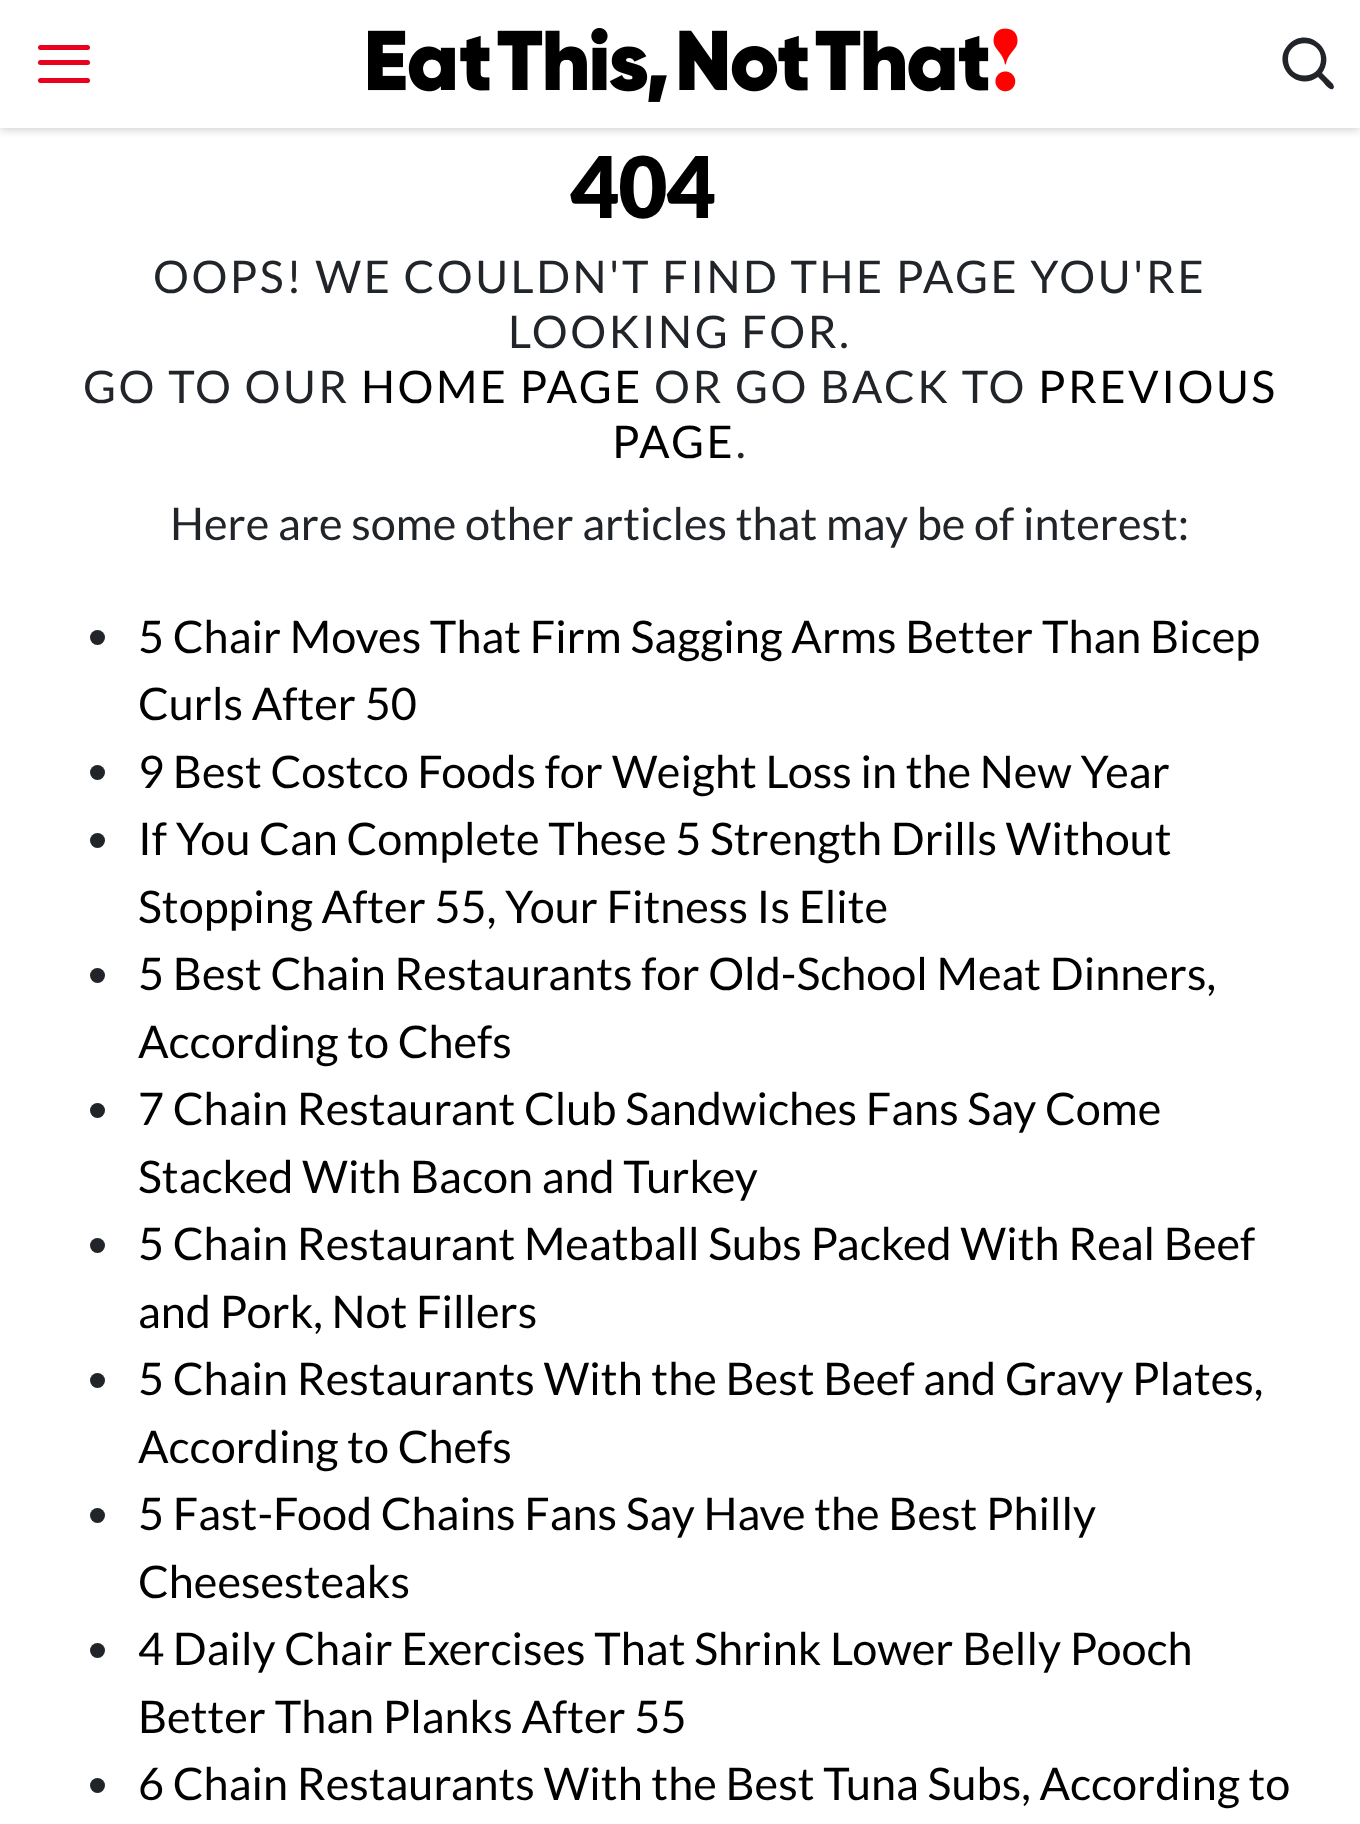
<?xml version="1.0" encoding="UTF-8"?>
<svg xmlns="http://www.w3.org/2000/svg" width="1360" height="1824">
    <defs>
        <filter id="blur1" x="-50%" y="-200%" width="200%" height="500%"><feGaussianBlur stdDeviation="4"/></filter>
        <clipPath id="clip1"><path d="M 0 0 H 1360 V 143 H 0 Z M 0 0 H 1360 V 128 H 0 Z" clip-rule="evenodd"/></clipPath>
    </defs>
    <rect width="100%" height="100%" fill="#FFFFFF"/>
    <rect x="0" y="3" width="1360" height="127" fill="#000000" fill-opacity="0.09" filter="url(#blur1)"/>
    <rect x="0" y="0" width="1360" height="128" fill="#FFFFFF"/>
    <g clip-path="url(#clip1)">
        <rect x="0" y="3" width="1360" height="127" fill="#000000" fill-opacity="0.09" filter="url(#blur1)"/>
    </g>
    <rect x="38" y="45" width="52" height="5" rx="2.5" fill="#E8021D"/>
    <rect x="38" y="60" width="52" height="5" rx="2.5" fill="#E8021D"/>
    <rect x="38" y="78" width="52" height="5" rx="2.5" fill="#E8021D"/>
    <image x="368" y="28" width="650" height="74" href="img_01.png"/>
    <path d="M 1333 84 L 1322 73 C 1338 51 1308 25 1289 44 C 1270 63 1296 93 1318 77 L 1323 82 C 1324 83 1332 94 1334 87 Z M 1288 59 C 1288 38 1321 38 1321 59 C 1321 81 1288 81 1288 59 Z" fill="#212529"/>
    <text x="570" y="218" font-family="Lato" font-size="85" font-weight="900" letter-spacing="-1" fill="#000000">404</text>
    <text x="153" y="293" font-family="Lato" font-size="45" letter-spacing="2.5" fill="#212529">OOPS! WE COULDN'T FIND THE PAGE YOU'RE</text>
    <text x="508" y="348" font-family="Lato" font-size="45" letter-spacing="2.5" fill="#212529">LOOKING FOR.</text>
    <text x="83" y="403" font-family="Lato" font-size="45" letter-spacing="2.5" fill="#212529">GO TO OUR</text>
    <text x="361" y="403" font-family="Lato" font-size="45" letter-spacing="2.5" fill="#000000">HOME PAGE</text>
    <text x="654" y="403" font-family="Lato" font-size="45" letter-spacing="2.5" fill="#212529">OR GO BACK TO</text>
    <text x="1038" y="403" font-family="Lato" font-size="45" letter-spacing="2.5" fill="#000000">PREVIOUS</text>
    <text x="612" y="458" font-family="Lato" font-size="45" letter-spacing="2.5" fill="#000000">PAGE</text>
    <text x="736" y="458" font-family="Lato" font-size="45" letter-spacing="2.5" fill="#212529">.</text>
    <text x="170" y="540" font-family="Lato" font-size="45" fill="#212529">Here are some other articles that may be of interest:</text>
    <circle cx="97.5" cy="637.5" r="7.5" fill="#212529"/>
    <text font-family="Lato" font-size="45" fill="#000000">
        <tspan x="138" y="653">5 Chair Moves That Firm Sagging Arms Better Than Bicep</tspan>
        <tspan x="138" y="720">Curls After 50</tspan>
    </text>
    <circle cx="97.5" cy="772.5" r="7.5" fill="#212529"/>
    <text x="138" y="788" font-family="Lato" font-size="45" fill="#000000">9 Best Costco Foods for Weight Loss in the New Year</text>
    <circle cx="97.5" cy="840.5" r="7.5" fill="#212529"/>
    <text font-family="Lato" font-size="45" fill="#000000">
        <tspan x="138" y="855">If You Can Complete These 5 Strength Drills Without</tspan>
        <tspan x="138" y="923">Stopping After 55, Your Fitness Is Elite</tspan>
    </text>
    <circle cx="97.5" cy="975.5" r="7.5" fill="#212529"/>
    <text font-family="Lato" font-size="45" fill="#000000">
        <tspan x="138" y="990">5 Best Chain Restaurants for Old-School Meat Dinners,</tspan>
        <tspan x="138" y="1058">According to Chefs</tspan>
    </text>
    <circle cx="97.5" cy="1110.5" r="7.5" fill="#212529"/>
    <text font-family="Lato" font-size="45" fill="#000000">
        <tspan x="138" y="1125">7 Chain Restaurant Club Sandwiches Fans Say Come</tspan>
        <tspan x="138" y="1193">Stacked With Bacon and Turkey</tspan>
    </text>
    <circle cx="97.5" cy="1245.5" r="7.5" fill="#212529"/>
    <text font-family="Lato" font-size="45" fill="#000000">
        <tspan x="138" y="1260">5 Chain Restaurant Meatball Subs Packed With Real Beef</tspan>
        <tspan x="138" y="1328">and Pork, Not Fillers</tspan>
    </text>
    <circle cx="97.5" cy="1380.5" r="7.5" fill="#212529"/>
    <text font-family="Lato" font-size="45" fill="#000000">
        <tspan x="138" y="1395">5 Chain Restaurants With the Best Beef and Gravy Plates,</tspan>
        <tspan x="138" y="1463">According to Chefs</tspan>
    </text>
    <circle cx="97.5" cy="1515.5" r="7.5" fill="#212529"/>
    <text font-family="Lato" font-size="45" fill="#000000">
        <tspan x="138" y="1530">5 Fast-Food Chains Fans Say Have the Best Philly</tspan>
        <tspan x="138" y="1598">Cheesesteaks</tspan>
    </text>
    <circle cx="97.5" cy="1650.5" r="7.5" fill="#212529"/>
    <text font-family="Lato" font-size="45" fill="#000000">
        <tspan x="138" y="1665">4 Daily Chair Exercises That Shrink Lower Belly Pooch</tspan>
        <tspan x="138" y="1733">Better Than Planks After 55</tspan>
    </text>
    <circle cx="97.5" cy="1785.5" r="7.5" fill="#212529"/>
    <text x="138" y="1800" font-family="Lato" font-size="45" fill="#000000">6 Chain Restaurants With the Best Tuna Subs, According to</text>
</svg>
